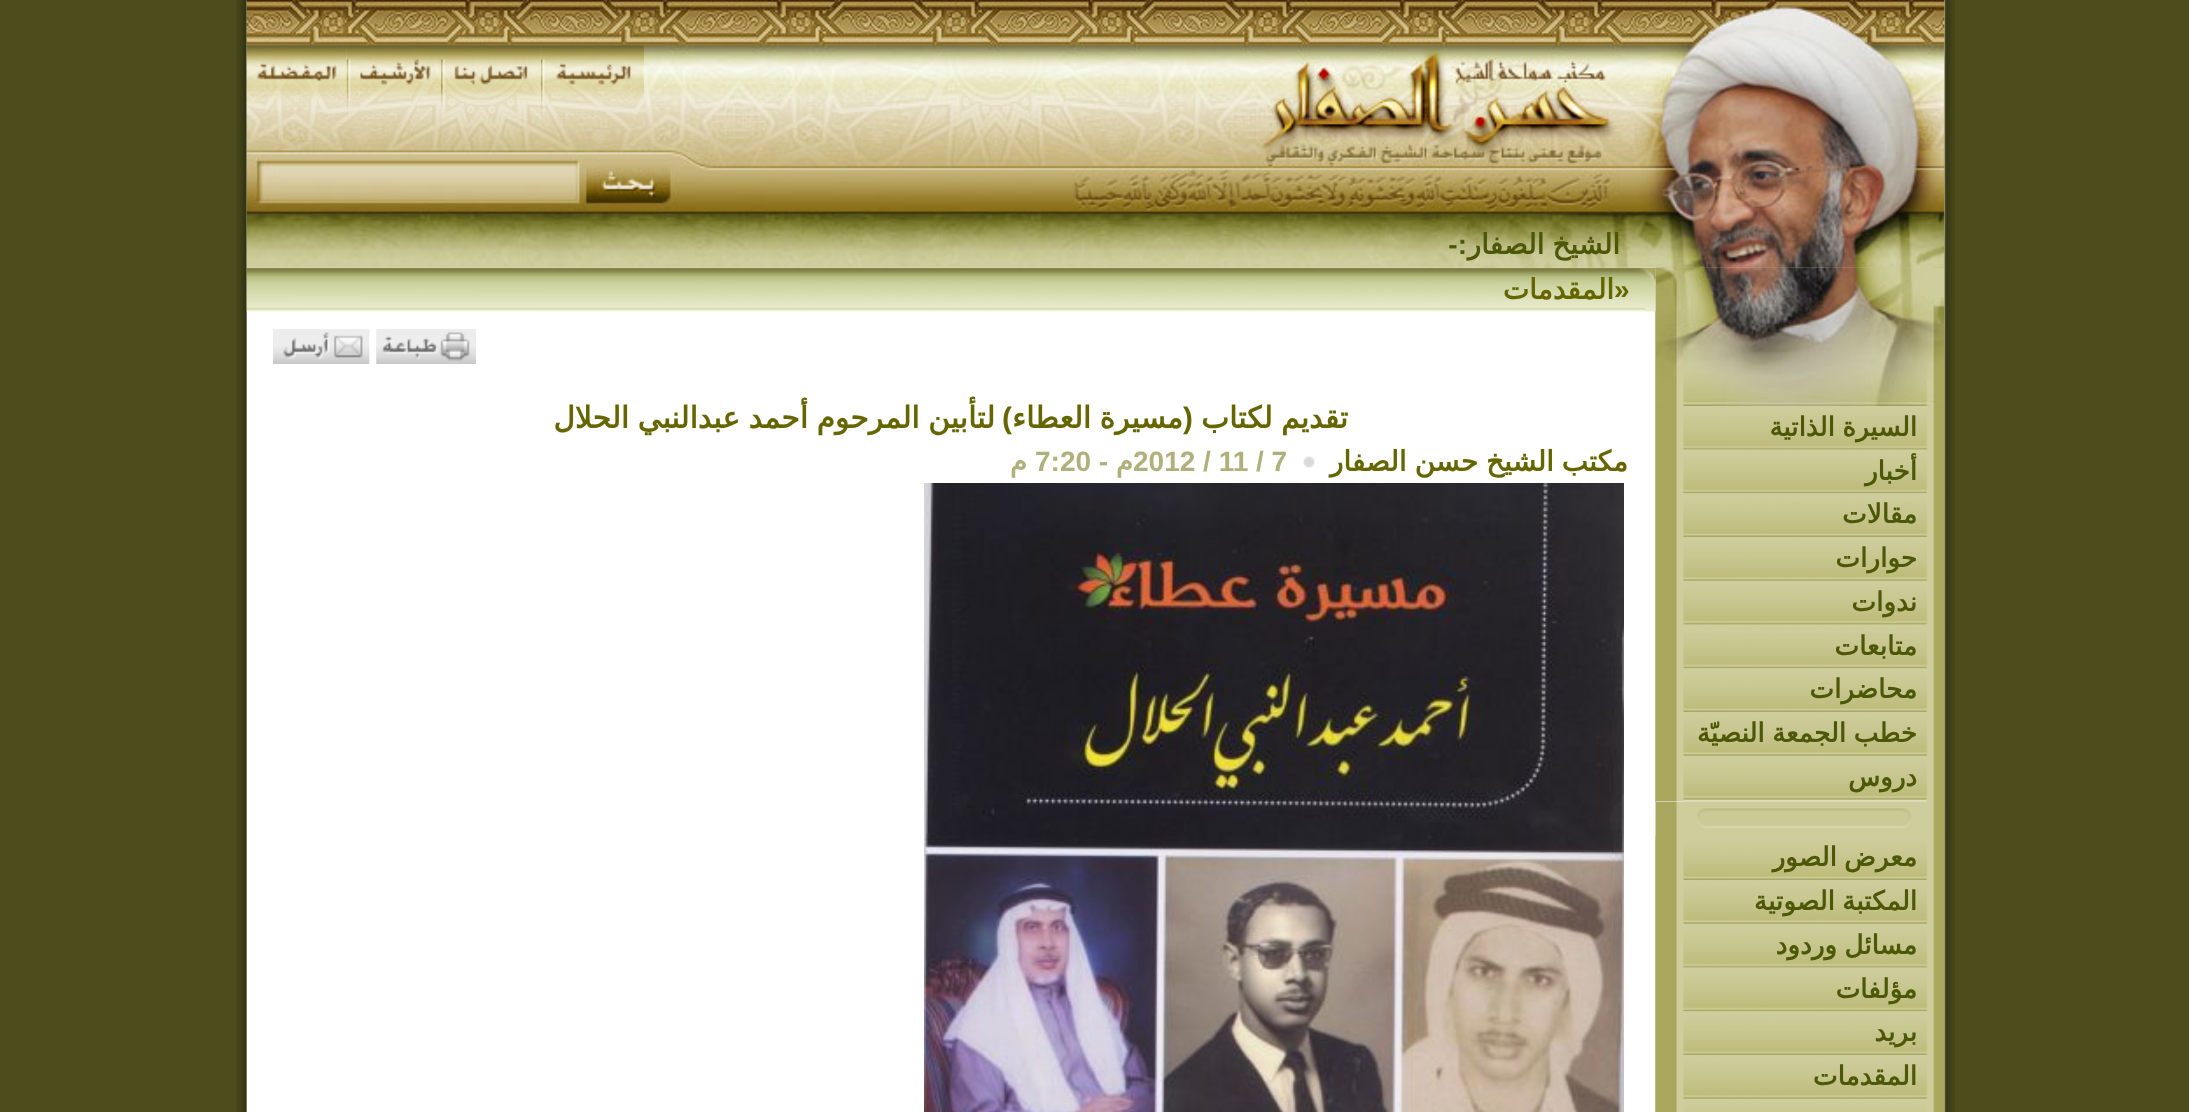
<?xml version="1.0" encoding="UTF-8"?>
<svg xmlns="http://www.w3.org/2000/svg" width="2189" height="1112">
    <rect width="100%" height="100%" fill="#4C4C1C"/>
    <image x="236" y="0" width="1719" height="1112" href="img_01.png"/>
    <rect x="247" y="267" width="1" height="845" fill="#FFFFFF"/>
    <image x="1655" y="0" width="290" height="1112" href="img_02.png"/>
    <image x="1655" y="267" width="290" height="139" href="img_13.png"/>
    <image x="246" y="267" width="1410" height="45" href="img_08.png"/>
    <image x="246" y="0" width="1699" height="268" href="img_03.png"/>
    <image x="540" y="45" width="104" height="74" href="img_04.png"/>
    <image x="441" y="45" width="100" height="74" href="img_05.png"/>
    <image x="346" y="45" width="95" height="74" href="img_06.png"/>
    <image x="246" y="45" width="101" height="74" href="img_07.png"/>
    <text x="1467" y="254" font-family="Liberation Sans" font-size="28" font-weight="700" direction="rtl" fill="#4C5708">:-</text>
    <text x="1620" y="254" word-spacing="-1" font-family="DejaVu Sans" font-size="28" font-weight="700" direction="rtl" fill="#4C5708">الشيخ الصفار</text>
    <text x="1614" y="299" font-family="Liberation Sans" font-size="28" font-weight="700" fill="#666600">»</text>
    <text x="1614" y="299" font-family="DejaVu Sans" font-size="28" font-weight="700" direction="rtl" fill="#666600">المقدمات</text>
    <image x="376" y="329" width="100" height="35" href="img_09.png"/>
    <image x="273" y="329" width="97" height="35" href="img_10.png"/>
    <text x="1348" y="428" word-spacing="-1" font-family="DejaVu Sans" font-size="29.75" font-weight="700" direction="rtl" fill="#666600">تقديم لكتاب</text>
    <text x="1193" y="428" font-family="Liberation Sans" font-size="29.75" font-weight="700" direction="rtl" fill="#666600">(</text>
    <text x="1183" y="428" word-spacing="-1" font-family="DejaVu Sans" font-size="29.75" font-weight="700" direction="rtl" fill="#666600">مسيرة العطاء</text>
    <text x="1012" y="428" font-family="Liberation Sans" font-size="29.75" font-weight="700" direction="rtl" fill="#666600">)</text>
    <text x="995" y="428" word-spacing="-1" font-family="DejaVu Sans" font-size="29.75" font-weight="700" direction="rtl" fill="#666600">لتأبين المرحوم أحمد عبدالنبي الحلال</text>
    <text x="1628" y="471" word-spacing="-1" font-family="DejaVu Sans" font-size="28" font-weight="700" direction="rtl" fill="#666600">مكتب الشيخ حسن الصفار</text>
    <image x="1303" y="456" width="12" height="12" href="img_11.png"/>
    <text x="1133" y="471" font-family="Liberation Sans" font-size="28" font-weight="700" fill="#B0B07C">2012 / 11 / 7</text>
    <text x="1133" y="471" font-family="DejaVu Sans" font-size="28" font-weight="700" direction="rtl" fill="#B0B07C">م</text>
    <text x="1108" y="471" font-family="Liberation Sans" font-size="28" font-weight="700" direction="rtl" fill="#B0B07C">-</text>
    <text x="1035" y="471" font-family="Liberation Sans" font-size="28" font-weight="700" fill="#B0B07C">7:20</text>
    <text x="1027" y="471" font-family="DejaVu Sans" font-size="28" font-weight="700" direction="rtl" fill="#B0B07C">م</text>
    <image x="924" y="483" width="700" height="629" href="img_12.png"/>
    <rect x="1656" y="801" width="28" height="1" fill="#FFFFFF"/>
    <image x="1655" y="406" width="290" height="396" href="img_14.png"/>
    <image x="1683" y="406" width="262" height="46" href="img_15.png"/>
    <text x="1917" y="436" word-spacing="-1" font-family="DejaVu Sans" font-size="26.25" font-weight="700" direction="rtl" fill="#4C5708">السيرة الذاتية</text>
    <image x="1683" y="449" width="262" height="47" href="img_16.png"/>
    <text x="1917" y="480" font-family="DejaVu Sans" font-size="26.25" font-weight="700" direction="rtl" fill="#4C5708">أخبار</text>
    <image x="1683" y="493" width="262" height="46" href="img_17.png"/>
    <text x="1917" y="523" font-family="DejaVu Sans" font-size="26.25" font-weight="700" direction="rtl" fill="#4C5708">مقالات</text>
    <image x="1683" y="538" width="262" height="45" href="img_18.png"/>
    <text x="1917" y="567" font-family="DejaVu Sans" font-size="26.25" font-weight="700" direction="rtl" fill="#4C5708">حوارات</text>
    <image x="1683" y="581" width="262" height="46" href="img_19.png"/>
    <text x="1917" y="611" font-family="DejaVu Sans" font-size="26.25" font-weight="700" direction="rtl" fill="#4C5708">ندوات</text>
    <image x="1683" y="624" width="262" height="47" href="img_16.png"/>
    <text x="1917" y="655" font-family="DejaVu Sans" font-size="26.25" font-weight="700" direction="rtl" fill="#4C5708">متابعات</text>
    <image x="1683" y="668" width="262" height="46" href="img_17.png"/>
    <text x="1917" y="698" font-family="DejaVu Sans" font-size="26.25" font-weight="700" direction="rtl" fill="#4C5708">محاضرات</text>
    <image x="1683" y="713" width="262" height="45" href="img_18.png"/>
    <text x="1917" y="742" word-spacing="-1" font-family="DejaVu Sans" font-size="26.25" font-weight="700" direction="rtl" fill="#4C5708">خطب الجمعة النصيّة</text>
    <image x="1683" y="800" width="262" height="36" href="img_21.png"/>
    <image x="1683" y="756" width="262" height="46" href="img_20.png"/>
    <text x="1917" y="786" font-family="DejaVu Sans" font-size="26.25" font-weight="700" direction="rtl" fill="#4C5708">دروس</text>
    <image x="1655" y="836" width="290" height="276" href="img_22.png"/>
    <image x="1683" y="837" width="262" height="45" href="img_23.png"/>
    <text x="1917" y="866" word-spacing="-1" font-family="DejaVu Sans" font-size="26.25" font-weight="700" direction="rtl" fill="#4C5708">معرض الصور</text>
    <image x="1683" y="881" width="262" height="45" href="img_18.png"/>
    <text x="1917" y="910" word-spacing="-1" font-family="DejaVu Sans" font-size="26.25" font-weight="700" direction="rtl" fill="#4C5708">المكتبة الصوتية</text>
    <image x="1683" y="924" width="262" height="46" href="img_19.png"/>
    <text x="1917" y="954" word-spacing="-1" font-family="DejaVu Sans" font-size="26.25" font-weight="700" direction="rtl" fill="#4C5708">مسائل وردود</text>
    <image x="1683" y="967" width="262" height="47" href="img_16.png"/>
    <text x="1917" y="998" font-family="DejaVu Sans" font-size="26.25" font-weight="700" direction="rtl" fill="#4C5708">مؤلفات</text>
    <image x="1683" y="1011" width="262" height="46" href="img_17.png"/>
    <text x="1917" y="1041" font-family="DejaVu Sans" font-size="26.25" font-weight="700" direction="rtl" fill="#4C5708">بريد</text>
    <image x="1683" y="1056" width="262" height="45" href="img_18.png"/>
    <text x="1917" y="1085" font-family="DejaVu Sans" font-size="26.25" font-weight="700" direction="rtl" fill="#4C5708">المقدمات</text>
    <image x="1683" y="1099" width="262" height="13" href="img_24.png"/>
</svg>
